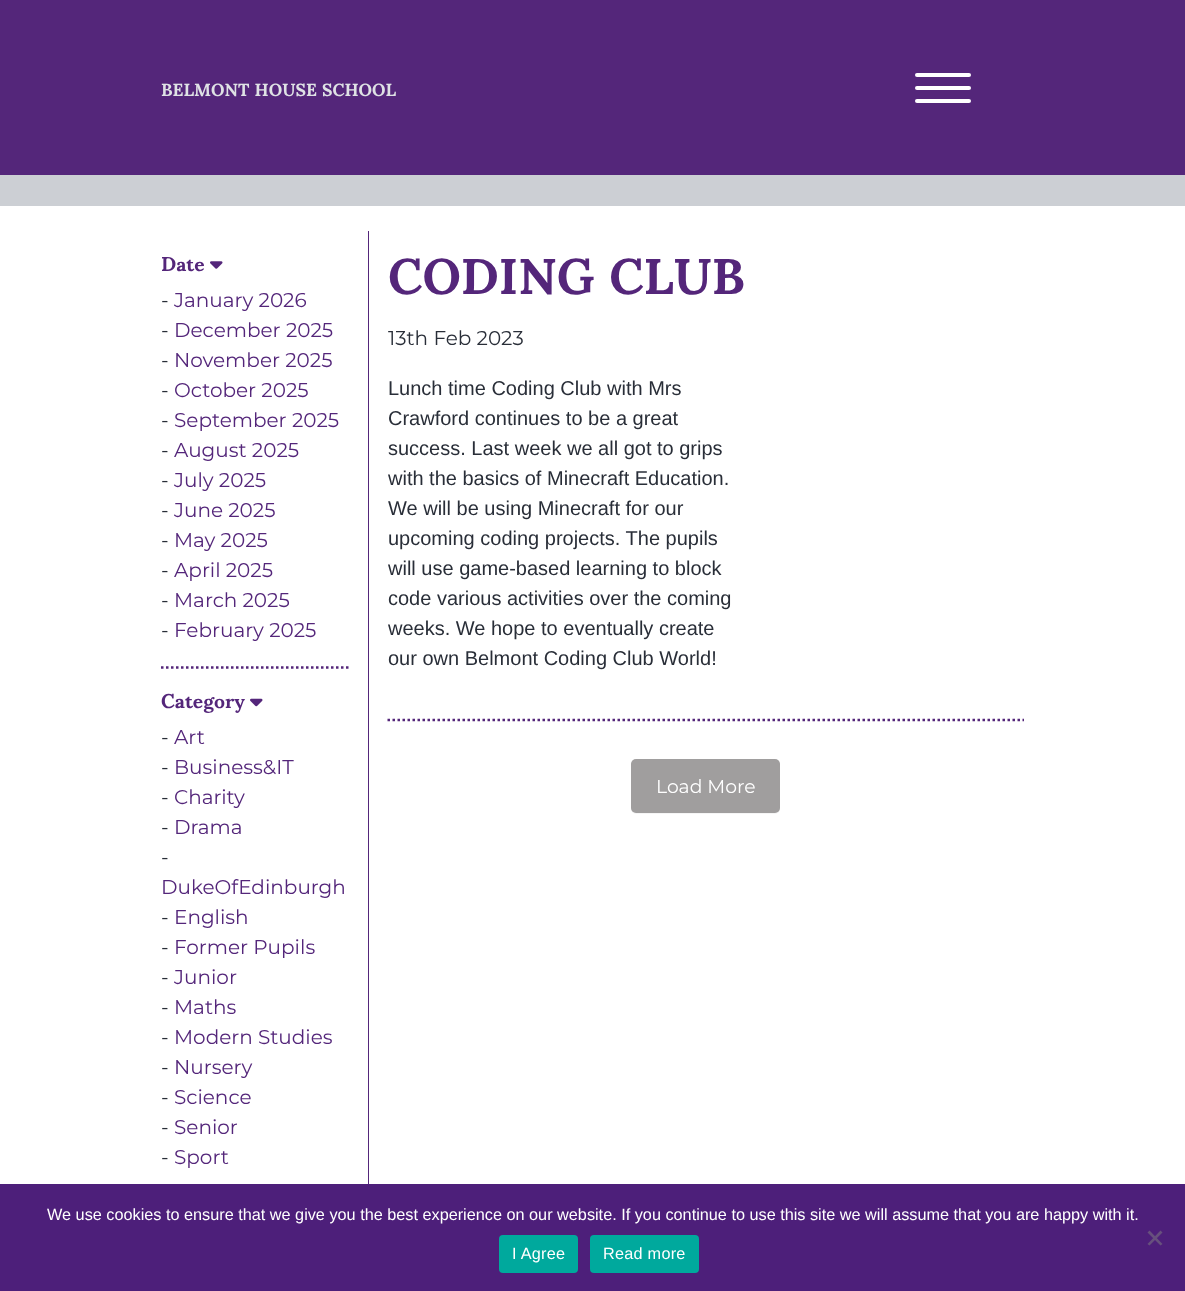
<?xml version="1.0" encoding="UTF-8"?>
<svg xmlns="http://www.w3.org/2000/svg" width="1185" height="1291">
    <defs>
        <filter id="blur1" x="-50%" y="-200%" width="200%" height="500%"><feGaussianBlur stdDeviation="0.5"/></filter>
    </defs>
    <rect width="100%" height="100%" fill="#FFFFFF"/>
    <rect x="0" y="0" width="1185" height="175" fill="#54267A"/>
    <text x="161" y="96" font-family="Sumana" font-size="17.5" font-weight="700" fill="#DFE2E5">BELMONT HOUSE SCHOOL</text>
    <rect x="915" y="73" width="56" height="4" rx="2" fill="#FFFFFF"/>
    <rect x="915" y="86" width="56" height="4" rx="2" fill="#FFFFFF"/>
    <rect x="915" y="99" width="56" height="4" rx="2" fill="#FFFFFF"/>
    <rect x="0" y="175" width="1185" height="31" fill="#CCCFD4"/>
    <path d="M 161 667.5 H 349" fill="none" stroke="#54267A" stroke-width="2.5" stroke-dasharray="2.5 2.5"/>
    <text x="161" y="271" font-family="Sumana" font-size="20" font-weight="700" fill="#54267A">Date</text>
    <image x="210" y="261" width="13" height="8" href="img_01.png"/>
    <text x="161" y="307" font-family="Montserrat" font-size="20" fill="#292E38">-</text>
    <text x="174" y="307" font-family="Montserrat" font-size="20" fill="#54267A">January 2026</text>
    <text x="161" y="337" font-family="Montserrat" font-size="20" fill="#292E38">-</text>
    <text x="174" y="337" font-family="Montserrat" font-size="20" fill="#54267A">December 2025</text>
    <text x="161" y="367" font-family="Montserrat" font-size="20" fill="#292E38">-</text>
    <text x="174" y="367" font-family="Montserrat" font-size="20" fill="#54267A">November 2025</text>
    <text x="161" y="397" font-family="Montserrat" font-size="20" fill="#292E38">-</text>
    <text x="174" y="397" font-family="Montserrat" font-size="20" fill="#54267A">October 2025</text>
    <text x="161" y="427" font-family="Montserrat" font-size="20" fill="#292E38">-</text>
    <text x="174" y="427" font-family="Montserrat" font-size="20" fill="#54267A">September 2025</text>
    <text x="161" y="457" font-family="Montserrat" font-size="20" fill="#292E38">-</text>
    <text x="174" y="457" font-family="Montserrat" font-size="20" fill="#54267A">August 2025</text>
    <text x="161" y="487" font-family="Montserrat" font-size="20" fill="#292E38">-</text>
    <text x="174" y="487" font-family="Montserrat" font-size="20" fill="#54267A">July 2025</text>
    <text x="161" y="517" font-family="Montserrat" font-size="20" fill="#292E38">-</text>
    <text x="174" y="517" font-family="Montserrat" font-size="20" fill="#54267A">June 2025</text>
    <text x="161" y="547" font-family="Montserrat" font-size="20" fill="#292E38">-</text>
    <text x="174" y="547" font-family="Montserrat" font-size="20" fill="#54267A">May 2025</text>
    <text x="161" y="577" font-family="Montserrat" font-size="20" fill="#292E38">-</text>
    <text x="174" y="577" font-family="Montserrat" font-size="20" fill="#54267A">April 2025</text>
    <text x="161" y="607" font-family="Montserrat" font-size="20" fill="#292E38">-</text>
    <text x="174" y="607" font-family="Montserrat" font-size="20" fill="#54267A">March 2025</text>
    <text x="161" y="637" font-family="Montserrat" font-size="20" fill="#292E38">-</text>
    <text x="174" y="637" font-family="Montserrat" font-size="20" fill="#54267A">February 2025</text>
    <text x="161" y="708" font-family="Sumana" font-size="20" font-weight="700" fill="#54267A">Category</text>
    <image x="250" y="698" width="13" height="9" href="img_02.png"/>
    <text x="161" y="744" font-family="Montserrat" font-size="20" fill="#292E38">-</text>
    <text x="174" y="744" font-family="Montserrat" font-size="20" fill="#54267A">Art</text>
    <text x="161" y="774" font-family="Montserrat" font-size="20" fill="#292E38">-</text>
    <text x="174" y="774" font-family="Montserrat" font-size="20" fill="#54267A">Business&amp;IT</text>
    <text x="161" y="804" font-family="Montserrat" font-size="20" fill="#292E38">-</text>
    <text x="174" y="804" font-family="Montserrat" font-size="20" fill="#54267A">Charity</text>
    <text x="161" y="834" font-family="Montserrat" font-size="20" fill="#292E38">-</text>
    <text x="174" y="834" font-family="Montserrat" font-size="20" fill="#54267A">Drama</text>
    <text x="161" y="864" font-family="Montserrat" font-size="20" fill="#292E38">-</text>
    <text x="161" y="894" font-family="Montserrat" font-size="20" fill="#54267A">DukeOfEdinburgh</text>
    <text x="161" y="924" font-family="Montserrat" font-size="20" fill="#292E38">-</text>
    <text x="174" y="924" font-family="Montserrat" font-size="20" fill="#54267A">English</text>
    <text x="161" y="954" font-family="Montserrat" font-size="20" fill="#292E38">-</text>
    <text x="174" y="954" font-family="Montserrat" font-size="20" fill="#54267A">Former Pupils</text>
    <text x="161" y="984" font-family="Montserrat" font-size="20" fill="#292E38">-</text>
    <text x="174" y="984" font-family="Montserrat" font-size="20" fill="#54267A">Junior</text>
    <text x="161" y="1014" font-family="Montserrat" font-size="20" fill="#292E38">-</text>
    <text x="174" y="1014" font-family="Montserrat" font-size="20" fill="#54267A">Maths</text>
    <text x="161" y="1044" font-family="Montserrat" font-size="20" fill="#292E38">-</text>
    <text x="174" y="1044" font-family="Montserrat" font-size="20" fill="#54267A">Modern Studies</text>
    <text x="161" y="1074" font-family="Montserrat" font-size="20" fill="#292E38">-</text>
    <text x="174" y="1074" font-family="Montserrat" font-size="20" fill="#54267A">Nursery</text>
    <text x="161" y="1104" font-family="Montserrat" font-size="20" fill="#292E38">-</text>
    <text x="174" y="1104" font-family="Montserrat" font-size="20" fill="#54267A">Science</text>
    <text x="161" y="1134" font-family="Montserrat" font-size="20" fill="#292E38">-</text>
    <text x="174" y="1134" font-family="Montserrat" font-size="20" fill="#54267A">Senior</text>
    <text x="161" y="1164" font-family="Montserrat" font-size="20" fill="#292E38">-</text>
    <text x="174" y="1164" font-family="Montserrat" font-size="20" fill="#54267A">Sport</text>
    <rect x="368" y="231" width="1" height="953" fill="#54267A"/>
    <text x="388" y="294" font-family="Sumana" font-size="50" font-weight="700" fill="#54267A">CODING CLUB</text>
    <text x="388" y="345" font-family="Montserrat" font-size="20" fill="#292E38">13th Feb 2023</text>
    <text font-family="Liberation Sans" font-size="20" fill="#292E38">
        <tspan x="388" y="395">Lunch time Coding Club with Mrs</tspan>
        <tspan x="388" y="425">Crawford continues to be a great</tspan>
        <tspan x="388" y="455">success. Last week we all got to grips</tspan>
        <tspan x="388" y="485">with the basics of Minecraft Education.</tspan>
        <tspan x="388" y="515">We will be using Minecraft for our</tspan>
        <tspan x="388" y="545">upcoming coding projects. The pupils</tspan>
        <tspan x="388" y="575">will use game-based learning to block</tspan>
        <tspan x="388" y="605">code various activities over the coming</tspan>
        <tspan x="388" y="635">weeks. We hope to eventually create</tspan>
        <tspan x="388" y="665">our own Belmont Coding Club World!</tspan>
    </text>
    <path d="M 387.5 720 H 1024" fill="none" stroke="#54267A" stroke-width="2.5" stroke-dasharray="2.5 2.5"/>
    <rect x="631" y="760" width="149" height="54" rx="5" fill="#000000" fill-opacity="0.04" filter="url(#blur1)"/>
    <rect x="631" y="759" width="149" height="54" rx="5" fill="#A09E9E"/>
    <text x="656" y="793" font-family="Montserrat" font-size="18.75" fill="#FFFFFF">Load More</text>
    <rect x="0" y="1184" width="1185" height="107" fill="#4D1F7A"/>
    <text x="47" y="1220" font-family="Liberation Sans" font-size="16.25" fill="#FFFFFF">We use cookies to ensure that we give you the best experience on our website. If you continue to use this site we will assume that you are happy with it.</text>
    <path d="M 1160.5 1230.5 L 1162.5 1232.5 L 1149.5 1245.5 L 1147.5 1244 Z" fill="#67507D"/>
    <path d="M 1147.5 1232.5 L 1149.5 1230.5 L 1162.5 1244 L 1160.5 1245.5 Z" fill="#67507D"/>
    <rect x="499" y="1235" width="79" height="38" rx="4" fill="#00A99D"/>
    <text x="512" y="1259" font-family="Liberation Sans" font-size="16.25" letter-spacing="0.25" fill="#FFFFFF">I Agree</text>
    <rect x="590" y="1235" width="109" height="38" rx="4" fill="#00A99D"/>
    <text x="603" y="1259" font-family="Liberation Sans" font-size="16.25" letter-spacing="0.25" fill="#FFFFFF">Read more</text>
</svg>
